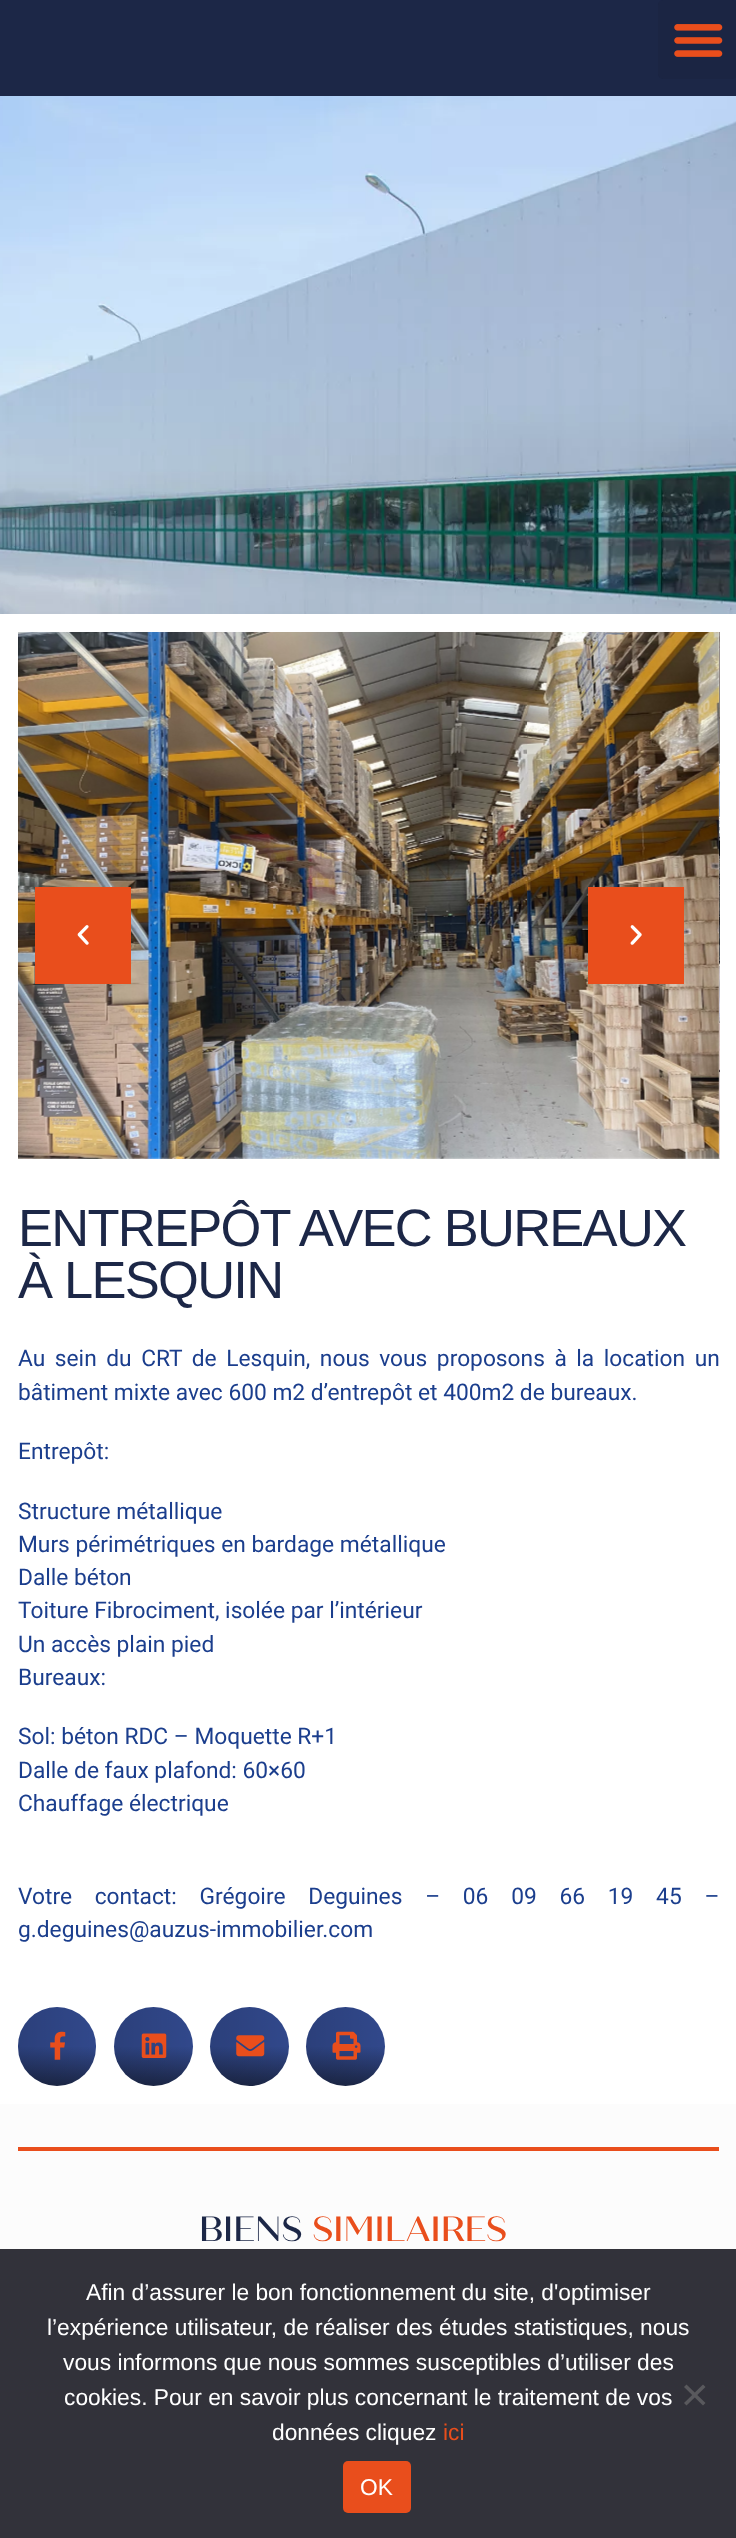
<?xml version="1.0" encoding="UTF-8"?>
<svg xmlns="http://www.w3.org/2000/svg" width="736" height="2538">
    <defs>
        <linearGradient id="g1" gradientUnits="userSpaceOnUse" x1="57" y1="2007" x2="57" y2="2086"><stop offset="0.5" stop-color="#31488B"/><stop offset="1" stop-color="#1C2747"/></linearGradient>
        <linearGradient id="g2" gradientUnits="userSpaceOnUse" x1="18" y1="2047" x2="96" y2="2047"><stop offset="0" stop-color="#000000" stop-opacity="0.12"/><stop offset="1" stop-color="#000000" stop-opacity="0"/></linearGradient>
        <linearGradient id="g3" gradientUnits="userSpaceOnUse" x1="153" y1="2007" x2="153" y2="2086"><stop offset="0.5" stop-color="#31488B"/><stop offset="1" stop-color="#1C2747"/></linearGradient>
        <linearGradient id="g4" gradientUnits="userSpaceOnUse" x1="114" y1="2047" x2="193" y2="2047"><stop offset="0" stop-color="#000000" stop-opacity="0.12"/><stop offset="1" stop-color="#000000" stop-opacity="0"/></linearGradient>
        <linearGradient id="g5" gradientUnits="userSpaceOnUse" x1="249" y1="2007" x2="249" y2="2086"><stop offset="0.5" stop-color="#31488B"/><stop offset="1" stop-color="#1C2747"/></linearGradient>
        <linearGradient id="g6" gradientUnits="userSpaceOnUse" x1="210" y1="2047" x2="289" y2="2047"><stop offset="0" stop-color="#000000" stop-opacity="0.12"/><stop offset="1" stop-color="#000000" stop-opacity="0"/></linearGradient>
        <linearGradient id="g7" gradientUnits="userSpaceOnUse" x1="346" y1="2007" x2="346" y2="2086"><stop offset="0.5" stop-color="#31488B"/><stop offset="1" stop-color="#1C2747"/></linearGradient>
        <linearGradient id="g8" gradientUnits="userSpaceOnUse" x1="306" y1="2047" x2="385" y2="2047"><stop offset="0" stop-color="#000000" stop-opacity="0.12"/><stop offset="1" stop-color="#000000" stop-opacity="0"/></linearGradient>
    </defs>
    <rect width="100%" height="100%" fill="#FCFCFC"/>
    <rect x="0" y="0" width="736" height="96" fill="#1C2747"/>
    <rect x="658" y="0" width="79" height="79" rx="5" fill="#1B2543"/>
    <image x="674" y="24" width="49" height="33" href="img_01.png"/>
    <image x="0" y="96" width="736" height="518" href="img_02.png"/>
    <rect x="0" y="614" width="736" height="1490" fill="#FFFFFF"/>
    <image x="18" y="632" width="702" height="527" href="img_03.png"/>
    <image x="719" y="632" width="1" height="527" href="img_04.png"/>
    <rect x="35" y="887" width="96" height="97" fill="#E94E1C"/>
    <image x="77" y="925" width="12" height="20" href="img_05.png"/>
    <rect x="588" y="887" width="96" height="97" fill="#E94E1C"/>
    <image x="630" y="925" width="12" height="20" href="img_06.png"/>
    <text font-family="Liberation Sans" font-size="52.5" letter-spacing="-1.75" fill="#1C2747">
        <tspan x="18" y="1246">ENTREPÔT AVEC BUREAUX</tspan>
        <tspan x="18" y="1298">À LESQUIN</tspan>
    </text>
    <text font-family="Roboto" font-size="22.75" fill="#1B3E8D">
        <tspan x="18" y="1366" word-spacing="3.9">Au sein du CRT de Lesquin, nous vous proposons à la location un</tspan>
        <tspan x="18" y="1400">bâtiment mixte avec 600 m2 d’entrepôt et 400m2 de bureaux.</tspan>
    </text>
    <text x="18" y="1459" font-family="Roboto" font-size="22.75" fill="#1B3E8D">Entrepôt:</text>
    <text font-family="Roboto" font-size="22.75" fill="#1B3E8D">
        <tspan x="18" y="1519">Structure métallique</tspan>
        <tspan x="18" y="1552">Murs périmétriques en bardage métallique</tspan>
        <tspan x="18" y="1585">Dalle béton</tspan>
        <tspan x="18" y="1618">Toiture Fibrociment, isolée par l’intérieur</tspan>
        <tspan x="18" y="1652">Un accès plain pied</tspan>
        <tspan x="18" y="1685">Bureaux:</tspan>
    </text>
    <text font-family="Roboto" font-size="22.75" fill="#1B3E8D">
        <tspan x="18" y="1744">Sol: béton RDC – Moquette R+1</tspan>
        <tspan x="18" y="1778">Dalle de faux plafond: 60×60</tspan>
        <tspan x="18" y="1811">Chauffage électrique</tspan>
    </text>
    <text font-family="Roboto" font-size="22.75" fill="#1B3E8D">
        <tspan x="18" y="1904" word-spacing="17.1">Votre contact: Grégoire Deguines – 06 09 66 19 45 –</tspan>
        <tspan x="18" y="1937">g.deguines@auzus-immobilier.com</tspan>
    </text>
    <rect x="18" y="2007" width="78" height="79" rx="39" fill="url(#g1)"/>
    <rect x="18" y="2007" width="78" height="79" rx="39" fill="url(#g2)"/>
    <image x="50" y="2031" width="16" height="29" href="img_07.png"/>
    <circle cx="153.5" cy="2046.5" r="39.5" fill="url(#g3)"/>
    <circle cx="153.5" cy="2046.5" r="39.5" fill="url(#g4)"/>
    <image x="141" y="2033" width="26" height="25" href="img_08.png"/>
    <circle cx="249.5" cy="2046.5" r="39.5" fill="url(#g5)"/>
    <circle cx="249.5" cy="2046.5" r="39.5" fill="url(#g6)"/>
    <image x="236" y="2035" width="29" height="22" href="img_09.png"/>
    <circle cx="345.5" cy="2046.5" r="39.5" fill="url(#g7)"/>
    <circle cx="345.5" cy="2046.5" r="39.5" fill="url(#g8)"/>
    <image x="332" y="2031" width="29" height="29" href="img_10.png"/>
    <rect x="18" y="2147" width="701" height="4" fill="#E94E1C"/>
    <text x="199" y="2241" font-family="'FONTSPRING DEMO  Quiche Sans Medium'" font-size="35" font-weight="500" fill="#1C2747">BIENS</text>
    <text x="312" y="2241" font-family="'FONTSPRING DEMO  Quiche Sans Medium'" font-size="35" font-weight="500" fill="#E94E1C">SIMILAIRES</text>
    <rect x="0" y="2249" width="736" height="289" fill="#32323A"/>
    <text x="86" y="2300" font-family="Liberation Sans" font-size="22.75" fill="#FFFFFF">Afin d’assurer le bon fonctionnement du site, d'optimiser</text>
    <text x="47" y="2335" font-family="Liberation Sans" font-size="22.75" fill="#FFFFFF">l’expérience utilisateur, de réaliser des études statistiques, nous</text>
    <text x="63" y="2370" font-family="Liberation Sans" font-size="22.75" fill="#FFFFFF">vous informons que nous sommes susceptibles d’utiliser des</text>
    <text x="64" y="2405" font-family="Liberation Sans" font-size="22.75" fill="#FFFFFF">cookies. Pour en savoir plus concernant le traitement de vos</text>
    <text x="272" y="2440" font-family="Liberation Sans" font-size="22.75" fill="#FFFFFF">données cliquez</text>
    <text x="443" y="2440" font-family="Liberation Sans" font-size="22.75" fill="#E94E1C">ici</text>
    <path d="M 703 2384.5 L 705.5 2387 L 686.5 2405.5 L 684 2403 Z" fill="#59595D"/>
    <path d="M 684 2387 L 686.5 2384.5 L 705.5 2403 L 703 2405.5 Z" fill="#59595D"/>
    <rect x="343" y="2461" width="68" height="52" rx="5" fill="#E94E1C"/>
    <text x="360" y="2495" font-family="Liberation Sans" font-size="22.75" fill="#FFFFFF">OK</text>
</svg>
